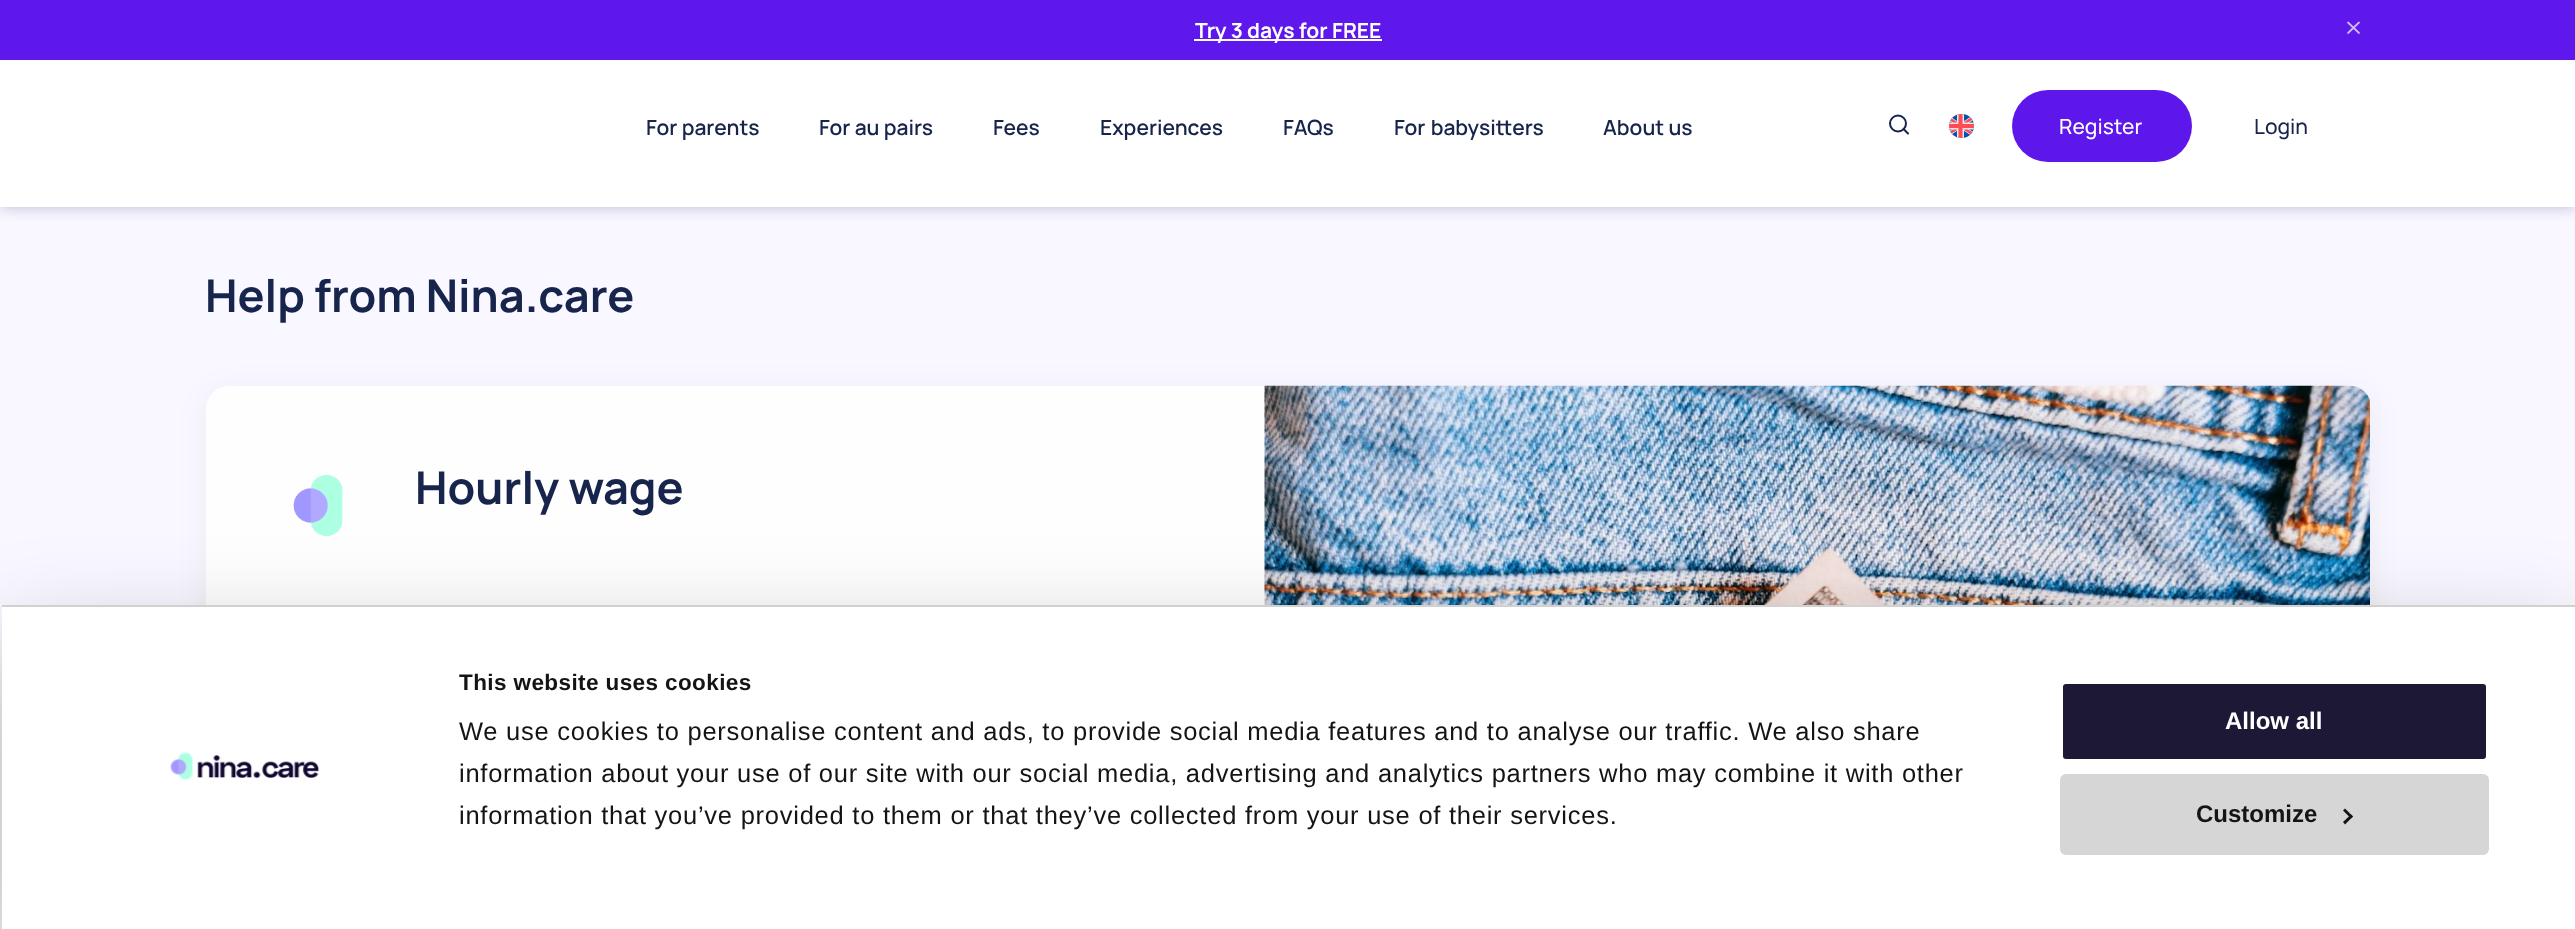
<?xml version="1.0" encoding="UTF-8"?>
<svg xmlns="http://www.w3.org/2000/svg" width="2575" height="929">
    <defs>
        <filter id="blur1" x="-50%" y="-200%" width="200%" height="500%"><feGaussianBlur stdDeviation="7.5"/></filter>
        <filter id="blur2" x="-50%" y="-200%" width="200%" height="500%"><feGaussianBlur stdDeviation="15"/></filter>
        <clipPath id="clip1"><path d="M 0 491 H 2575 V 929 H 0 Z M 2 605 H 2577 V 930 H 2 Z" clip-rule="evenodd"/></clipPath>
        <filter id="blur3" x="-50%" y="-200%" width="200%" height="500%"><feGaussianBlur stdDeviation="52.5"/></filter>
    </defs>
    <rect width="100%" height="100%" fill="#F9F7FF"/>
    <rect x="0" y="0" width="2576" height="207" fill="#17244B" fill-opacity="0.25" filter="url(#blur1)"/>
    <rect x="0" y="0" width="2575" height="60" fill="#5E18EB"/>
    <rect x="1194" y="39" width="188" height="2" fill="#FFFFFF"/>
    <text x="1195" y="38" font-family="Manrope" font-size="21" font-weight="700" fill="#FFFFFF">Try 3 days for FREE</text>
    <path d="M 2359 22.5 L 2348 33 M 2348 22.5 L 2359 33" fill="none" stroke="#CFBAF9" stroke-width="1.8" stroke-linecap="round" stroke-linejoin="round"/>
    <rect x="0" y="60" width="2575" height="147" fill="#FFFFFF"/>
    <text x="646" y="135" font-family="Manrope" font-size="21" font-weight="600" fill="#17244B">For parents</text>
    <text x="819" y="135" font-family="Manrope" font-size="21" font-weight="600" fill="#17244B">For au pairs</text>
    <text x="993" y="135" font-family="Manrope" font-size="21" font-weight="600" fill="#17244B">Fees</text>
    <text x="1100" y="135" font-family="Manrope" font-size="21" font-weight="600" fill="#17244B">Experiences</text>
    <text x="1283" y="135" font-family="Manrope" font-size="21" font-weight="600" fill="#17244B">FAQs</text>
    <text x="1394" y="135" word-spacing="1" font-family="Manrope" font-size="21" font-weight="600" fill="#17244B">For babysitters</text>
    <text x="1603" y="135" font-family="Manrope" font-size="21" font-weight="600" fill="#17244B">About us</text>
    <circle cx="1898" cy="123.5" r="8" fill="none" stroke="#17244B" stroke-width="2"/>
    <path d="M 1908 133.5 L 1903.5 129" fill="none" stroke="#17244B" stroke-width="2" stroke-linecap="round" stroke-linejoin="round"/>
    <image x="1949" y="114" width="25" height="24" href="img_01.png"/>
    <rect x="2012" y="90" width="180" height="72" rx="36" fill="#5E17EB"/>
    <text x="2059" y="134" font-family="Manrope" font-size="21" font-weight="500" fill="#FFFFFF">Register</text>
    <text x="2254" y="134" font-family="Manrope" font-size="21" font-weight="500" fill="#17244B">Login</text>
    <text x="205" y="312" font-family="Manrope" font-size="45" font-weight="700" fill="#17244B">Help from Nina.care</text>
    <rect x="206" y="390" width="2166" height="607" rx="23" fill="#000000" fill-opacity="0.05" filter="url(#blur2)"/>
    <path d="M 229 386 H 1265 V 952 H 229 C 216.5 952 206 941.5 206 929 V 409 C 206 396.5 216.5 386 229 386 Z" fill="#FEFEFE"/>
    <image x="293" y="475" width="50" height="61" href="img_02.png"/>
    <text x="415" y="504" font-family="Manrope" font-size="45" font-weight="700" fill="#17244B">Hourly wage</text>
    <image x="1264" y="385" width="1106" height="220" href="img_03.png"/>
    <g clip-path="url(#clip1)">
        <rect x="2" y="650" width="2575" height="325" fill="#000000" fill-opacity="0.3" filter="url(#blur3)"/>
    </g>
    <rect x="2" y="607" width="2573" height="322" fill="#FFFFFF"/>
    <rect x="2" y="605" width="2573" height="2" fill="#D1D1D1"/>
    <image x="170" y="752" width="150" height="28" href="img_04.png"/>
    <text x="459" y="690" font-family="Liberation Sans" font-size="22.5" font-weight="700" letter-spacing="0.4" fill="#141414">This website uses cookies</text>
    <text font-family="Liberation Sans" font-size="25.5" letter-spacing="0.75" fill="#141414">
        <tspan x="459" y="740">We use cookies to personalise content and ads, to provide social media features and to analyse our traffic. We also share</tspan>
        <tspan x="459" y="782">information about your use of our site with our social media, advertising and analytics partners who may combine it with other</tspan>
        <tspan x="459" y="824">information that you’ve provided to them or that they’ve collected from your use of their services.</tspan>
    </text>
    <rect x="2061.5" y="682.5" width="426" height="78" rx="4.5" fill="#1C1836" stroke="#FFFFFF" stroke-width="3"/>
    <text x="2225" y="729" font-family="Liberation Sans" font-size="24" font-weight="700" fill="#FFFFFF">Allow all</text>
    <rect x="2061.5" y="775.5" width="426" height="78" rx="4.5" fill="#D6D6D6" stroke="#D6D6D6" stroke-width="3"/>
    <text x="2196" y="822" font-family="Liberation Sans" font-size="24" font-weight="700" fill="#141414">Customize</text>
    <path d="M 2345 808.5 L 2353 816.5 L 2351 818.5 L 2343 810.5 Z" fill="#141414"/>
    <path d="M 2351 814.5 L 2353 816.5 L 2345 824.5 L 2343 822 Z" fill="#141414"/>
</svg>
